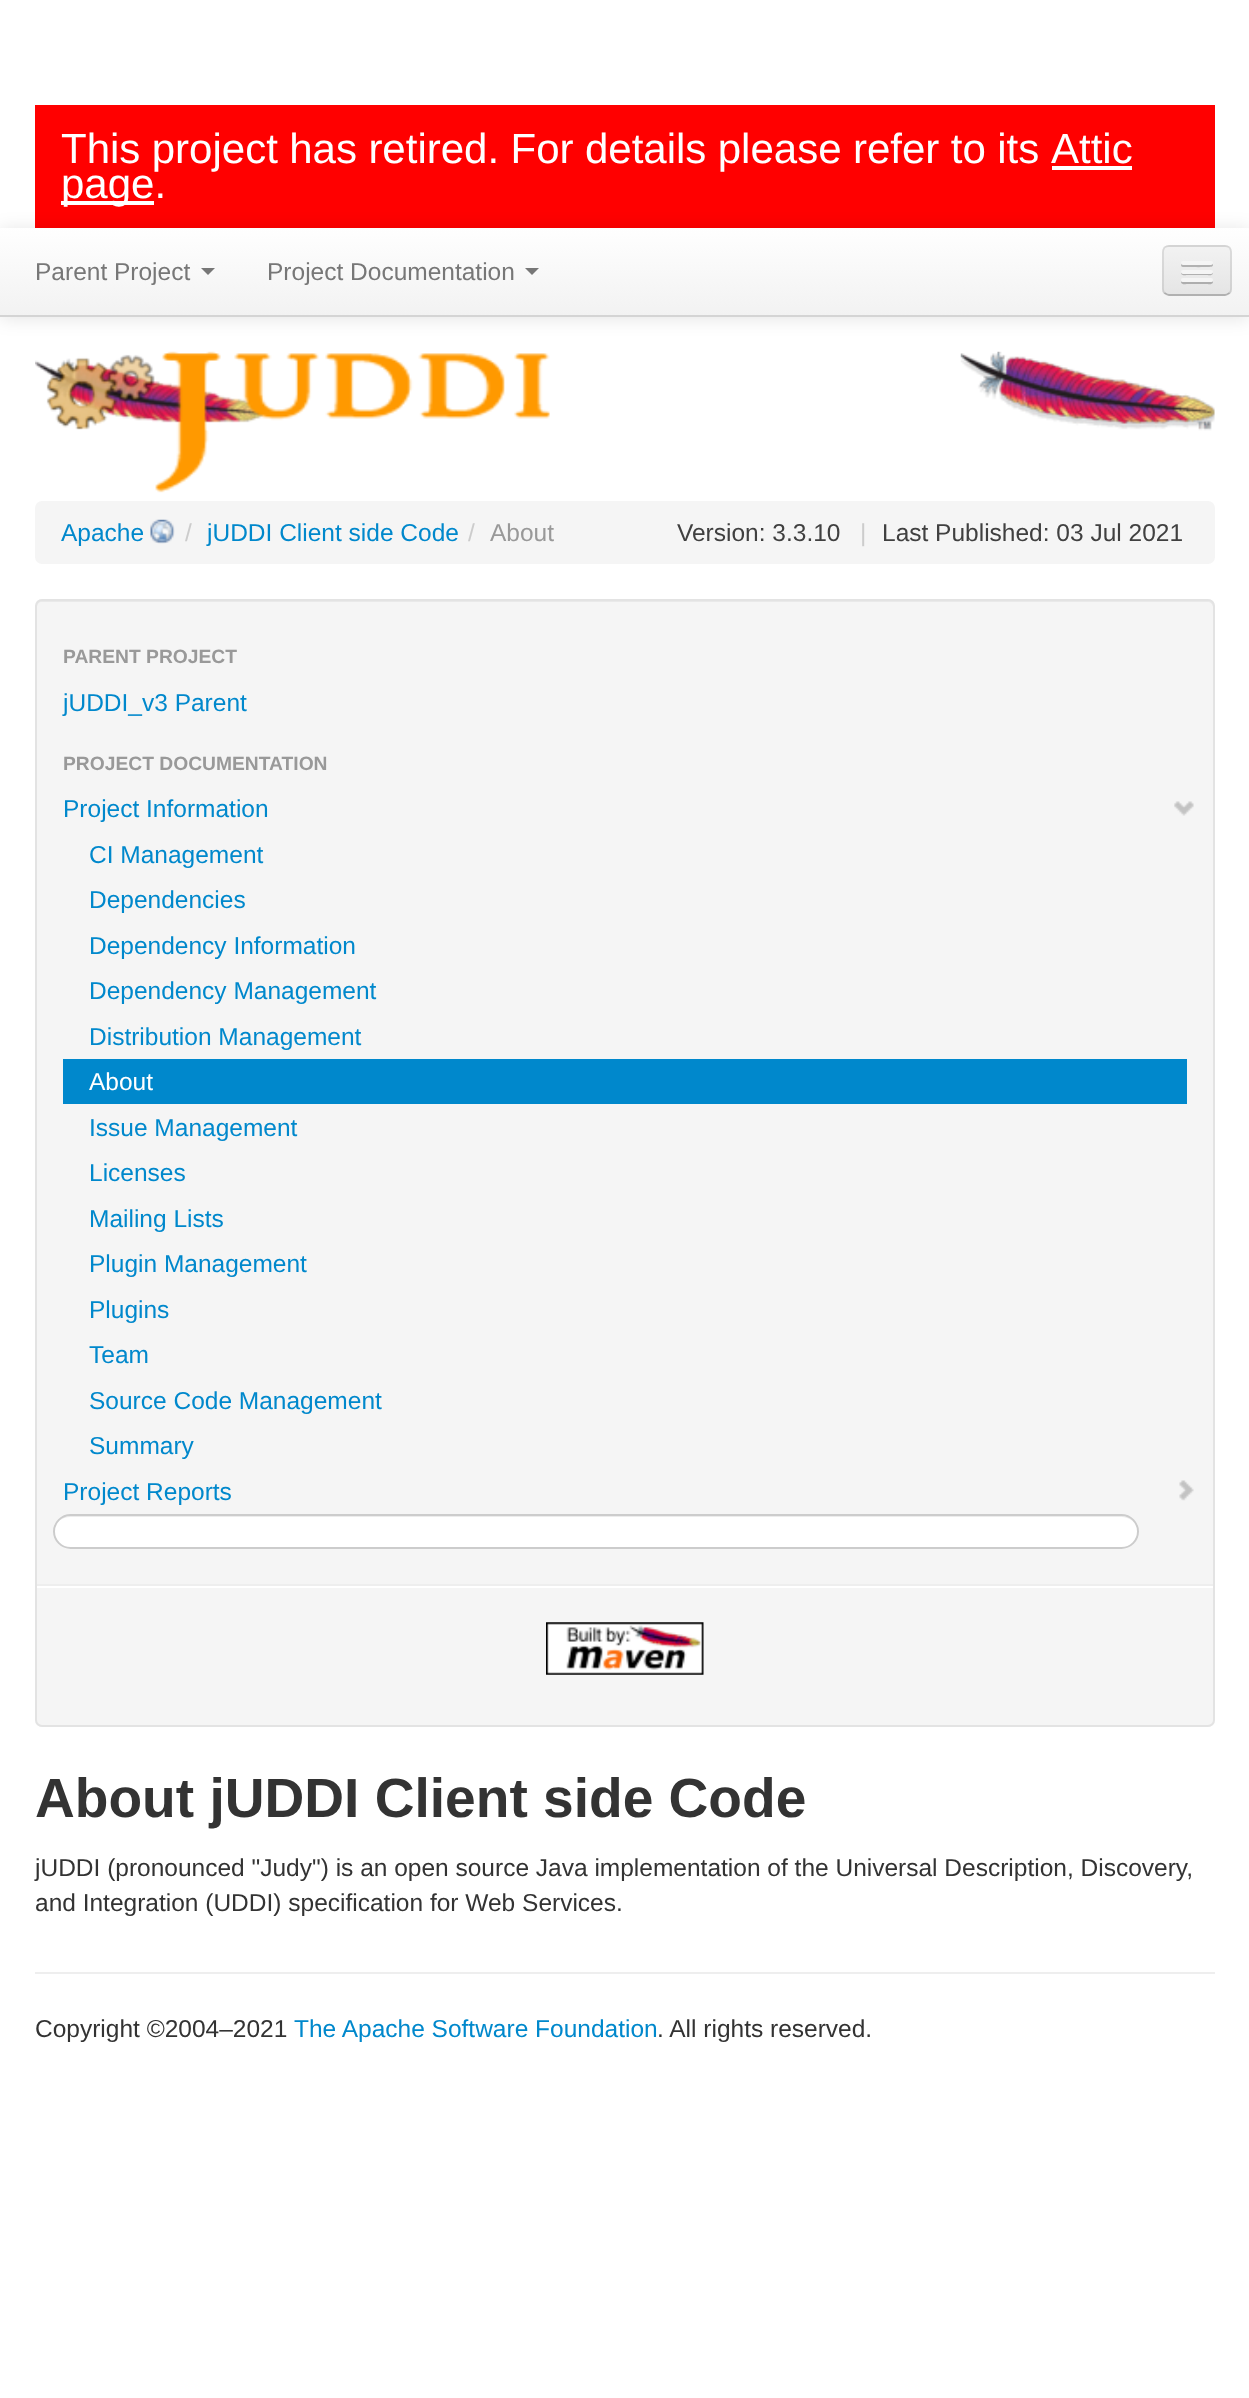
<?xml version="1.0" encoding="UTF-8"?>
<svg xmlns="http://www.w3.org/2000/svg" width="1249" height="2398">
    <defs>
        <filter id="blur1" x="-50%" y="-200%" width="200%" height="500%"><feGaussianBlur stdDeviation="9"/></filter>
        <linearGradient id="g1" gradientUnits="userSpaceOnUse" x1="625" y1="227" x2="625" y2="315"><stop offset="0" stop-color="#FFFFFF"/><stop offset="1" stop-color="#F2F2F2"/></linearGradient>
        <clipPath id="clip1"><rect x="1162" y="245" width="70" height="51" rx="7"/></clipPath>
        <linearGradient id="g2" gradientUnits="userSpaceOnUse" x1="1197" y1="247" x2="1197" y2="294"><stop offset="0" stop-color="#F2F2F2"/><stop offset="1" stop-color="#E5E5E5"/></linearGradient>
    </defs>
    <rect width="100%" height="100%" fill="#FFFFFF"/>
    <rect x="35" y="105" width="1180" height="123" fill="#FF0000"/>
    <text x="61" y="163" word-spacing="-0.25" font-family="Liberation Sans" font-size="42" fill="#FFFFFF">This project has retired. For details please refer to its</text>
    <text x="1051" y="163" font-family="Liberation Sans" font-size="42" fill="#FFFFFF">Attic</text>
    <rect x="1052" y="166" width="80" height="4" fill="#FFFFFF"/>
    <rect x="0" y="229" width="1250" height="90" fill="#000000" fill-opacity="0.1" filter="url(#blur1)"/>
    <rect x="61" y="201" width="93" height="4" fill="#FFFFFF"/>
    <text x="61" y="198" font-family="Liberation Sans" font-size="42" fill="#FFFFFF">page.</text>
    <rect x="0" y="228" width="1249" height="87" fill="url(#g1)"/>
    <rect x="0" y="315" width="1249" height="2" fill="#D4D4D4"/>
    <text x="35" y="280" font-family="Liberation Sans" font-size="24.5" fill="#777777">Parent Project</text>
    <path d="M 201 268 H 215 L 208 275 Z" fill="#777777"/>
    <text x="267" y="280" font-family="Liberation Sans" font-size="24.5" fill="#777777">Project Documentation</text>
    <path d="M 525 268 H 539 L 532 275 Z" fill="#777777"/>
    <rect x="1162" y="245" width="70" height="51" rx="7" fill="#EDEDED"/>
    <g clip-path="url(#clip1)">
        <rect x="1162" y="247" width="70" height="47" fill="url(#g2)"/>
    </g>
    <path d="M 1229.5 293 C 1228 294 1226.5 295 1225 295 H 1169 C 1167.5 295 1166 294 1164.5 293" fill="none" stroke="#000000" stroke-opacity="0.25" stroke-width="1.8"/>
    <path d="M 1164.5 293 C 1163.5 292 1163 290.5 1163 289 V 252 C 1163 250.5 1163.5 249 1164.5 247.5 C 1166 246.5 1167.5 246 1169 246 H 1225 C 1226.5 246 1228 246.5 1229.5 247.5 C 1230.5 249 1231 250.5 1231 252 V 289 C 1231 290.5 1230.5 292 1229.5 293" fill="none" stroke="#000000" stroke-opacity="0.1" stroke-width="1.8"/>
    <path d="M 1181.5 263.5 C 1180.5 265 1181 267 1183 267 C 1186.5 267 1211 267.5 1212 266.5 C 1213 266 1213.5 264.5 1212.5 263.5 L 1211 264 H 1183 Z" fill="#B2B2B2"/>
    <rect x="1181" y="261" width="32" height="4" rx="2" fill="#F5F5F5"/>
    <path d="M 1181.5 272 L 1181 273.5 C 1181.5 276 1186.5 275 1187.5 275 H 1206.5 C 1207.5 275 1212.5 276 1213 273.5 L 1212.5 272 C 1212.5 272.5 1212 273 1211 273 H 1183 C 1182 273 1181.5 272.5 1181.5 272 Z" fill="#B0B0B0"/>
    <rect x="1181" y="270" width="32" height="4" rx="2" fill="#F5F5F5"/>
    <path d="M 1181.5 281 L 1181 282.5 C 1181.5 285 1186.5 284 1187.5 284 H 1206.5 C 1207.5 284 1212.5 285 1213 282.5 L 1212.5 281 C 1212.5 281.5 1211.5 282 1211 282 H 1183 C 1182.5 282 1181.5 281.5 1181.5 281 Z" fill="#AEAEAE"/>
    <rect x="1181" y="278" width="32" height="4" rx="2" fill="#F5F5F5"/>
    <image x="35" y="351" width="515" height="142" href="img_01.png"/>
    <image x="960" y="351" width="255" height="80" href="img_02.png"/>
    <rect x="35" y="501" width="1180" height="63" rx="7" fill="#F5F5F5"/>
    <text x="61" y="541" font-family="Liberation Sans" font-size="24.5" fill="#0088CC">Apache</text>
    <image x="150" y="519" width="25" height="25" href="img_03.png"/>
    <text x="185" y="541" font-family="Liberation Sans" font-size="24.5" fill="#CCCCCC">/</text>
    <text x="207" y="541" font-family="Liberation Sans" font-size="24.5" fill="#0088CC">jUDDI Client side Code</text>
    <text x="468" y="541" font-family="Liberation Sans" font-size="24.5" fill="#CCCCCC">/</text>
    <text x="490" y="541" font-family="Liberation Sans" font-size="24.5" fill="#999999">About</text>
    <text x="677" y="541" font-family="Liberation Sans" font-size="24.5" fill="#404040">Version: 3.3.10</text>
    <text x="860" y="541" font-family="Liberation Sans" font-size="24.5" fill="#CCCCCC">|</text>
    <text x="882" y="541" font-family="Liberation Sans" font-size="24.5" fill="#404040">Last Published: 03 Jul 2021</text>
    <rect x="35" y="599" width="1180" height="1128" rx="7" fill="#F5F5F5"/>
    <path d="M 42 602 H 1208 C 1210 602 1213 604 1213 607 V 605 C 1213 602 1211 600 1208 600 H 42 C 39 600 37 602 37 605 V 607 C 37 604 39 602 42 602 Z" fill="#E9E9E9"/>
    <rect x="36" y="600" width="1178" height="1126" rx="6" fill="none" stroke="#E3E3E3" stroke-width="2"/>
    <text x="63" y="663" font-family="Liberation Sans" font-size="19.25" font-weight="700" fill="#999999">PARENT PROJECT</text>
    <text x="63" y="711" font-family="Liberation Sans" font-size="24.5" fill="#0088CC">jUDDI_v3 Parent</text>
    <text x="63" y="770" font-family="Liberation Sans" font-size="19.25" font-weight="700" fill="#999999">PROJECT DOCUMENTATION</text>
    <text x="63" y="817" font-family="Liberation Sans" font-size="24.5" fill="#0088CC">Project Information</text>
    <image x="1174" y="801" width="20" height="15" href="img_04.png"/>
    <text font-family="Liberation Sans" font-size="24.5" fill="#0088CC">
        <tspan x="89" y="863">CI Management</tspan>
        <tspan x="89" y="908">Dependencies</tspan>
        <tspan x="89" y="954">Dependency Information</tspan>
        <tspan x="89" y="999">Dependency Management</tspan>
        <tspan x="89" y="1045">Distribution Management</tspan>
    </text>
    <rect x="63" y="1059" width="1124" height="45" fill="#0088CC"/>
    <text x="89" y="1090" font-family="Liberation Sans" font-size="24.5" fill="#FFFFFF">About</text>
    <text font-family="Liberation Sans" font-size="24.5" fill="#0088CC">
        <tspan x="89" y="1136">Issue Management</tspan>
        <tspan x="89" y="1181">Licenses</tspan>
        <tspan x="89" y="1227">Mailing Lists</tspan>
        <tspan x="89" y="1272">Plugin Management</tspan>
        <tspan x="89" y="1318">Plugins</tspan>
        <tspan x="89" y="1363">Team</tspan>
        <tspan x="89" y="1409">Source Code Management</tspan>
        <tspan x="89" y="1454">Summary</tspan>
    </text>
    <text x="63" y="1500" font-family="Liberation Sans" font-size="24.5" fill="#0088CC">Project Reports</text>
    <image x="1179" y="1480" width="15" height="21" href="img_05.png"/>
    <rect x="53" y="1514" width="1086" height="35" rx="17.5" fill="#FFFFFF"/>
    <path d="M 70 1517 H 1122 C 1130 1517 1138 1524 1138 1532 C 1138 1524 1131 1516 1122 1516 H 70 C 61 1516 54 1524 54 1532 C 54 1524 61 1517 70 1517 Z" fill="#ECECEC"/>
    <rect x="54" y="1515" width="1084" height="33" rx="16.5" fill="none" stroke="#CCCCCC" stroke-width="2"/>
    <rect x="37" y="1584" width="1176" height="2" fill="#EEEEEE"/>
    <rect x="37" y="1586" width="1176" height="2" fill="#FFFFFF"/>
    <image x="546" y="1622" width="158" height="53" href="img_06.png"/>
    <text x="35" y="1817" font-family="Liberation Sans" font-size="55.1" font-weight="700" fill="#333333">About jUDDI Client side Code</text>
    <text font-family="Liberation Sans" font-size="24.5" fill="#333333">
        <tspan x="35" y="1876">jUDDI (pronounced "Judy") is an open source Java implementation of the Universal Description, Discovery,</tspan>
        <tspan x="35" y="1911">and Integration (UDDI) specification for Web Services.</tspan>
    </text>
    <rect x="35" y="1972" width="1180" height="2" fill="#EEEEEE"/>
    <text x="35" y="2037" font-family="Liberation Sans" font-size="24.5" fill="#333333">Copyright ©2004–2021</text>
    <text x="294" y="2037" font-family="Liberation Sans" font-size="24.5" fill="#0088CC">The Apache Software Foundation</text>
    <text x="657" y="2037" font-family="Liberation Sans" font-size="24.5" fill="#333333">. All rights reserved.</text>
</svg>
